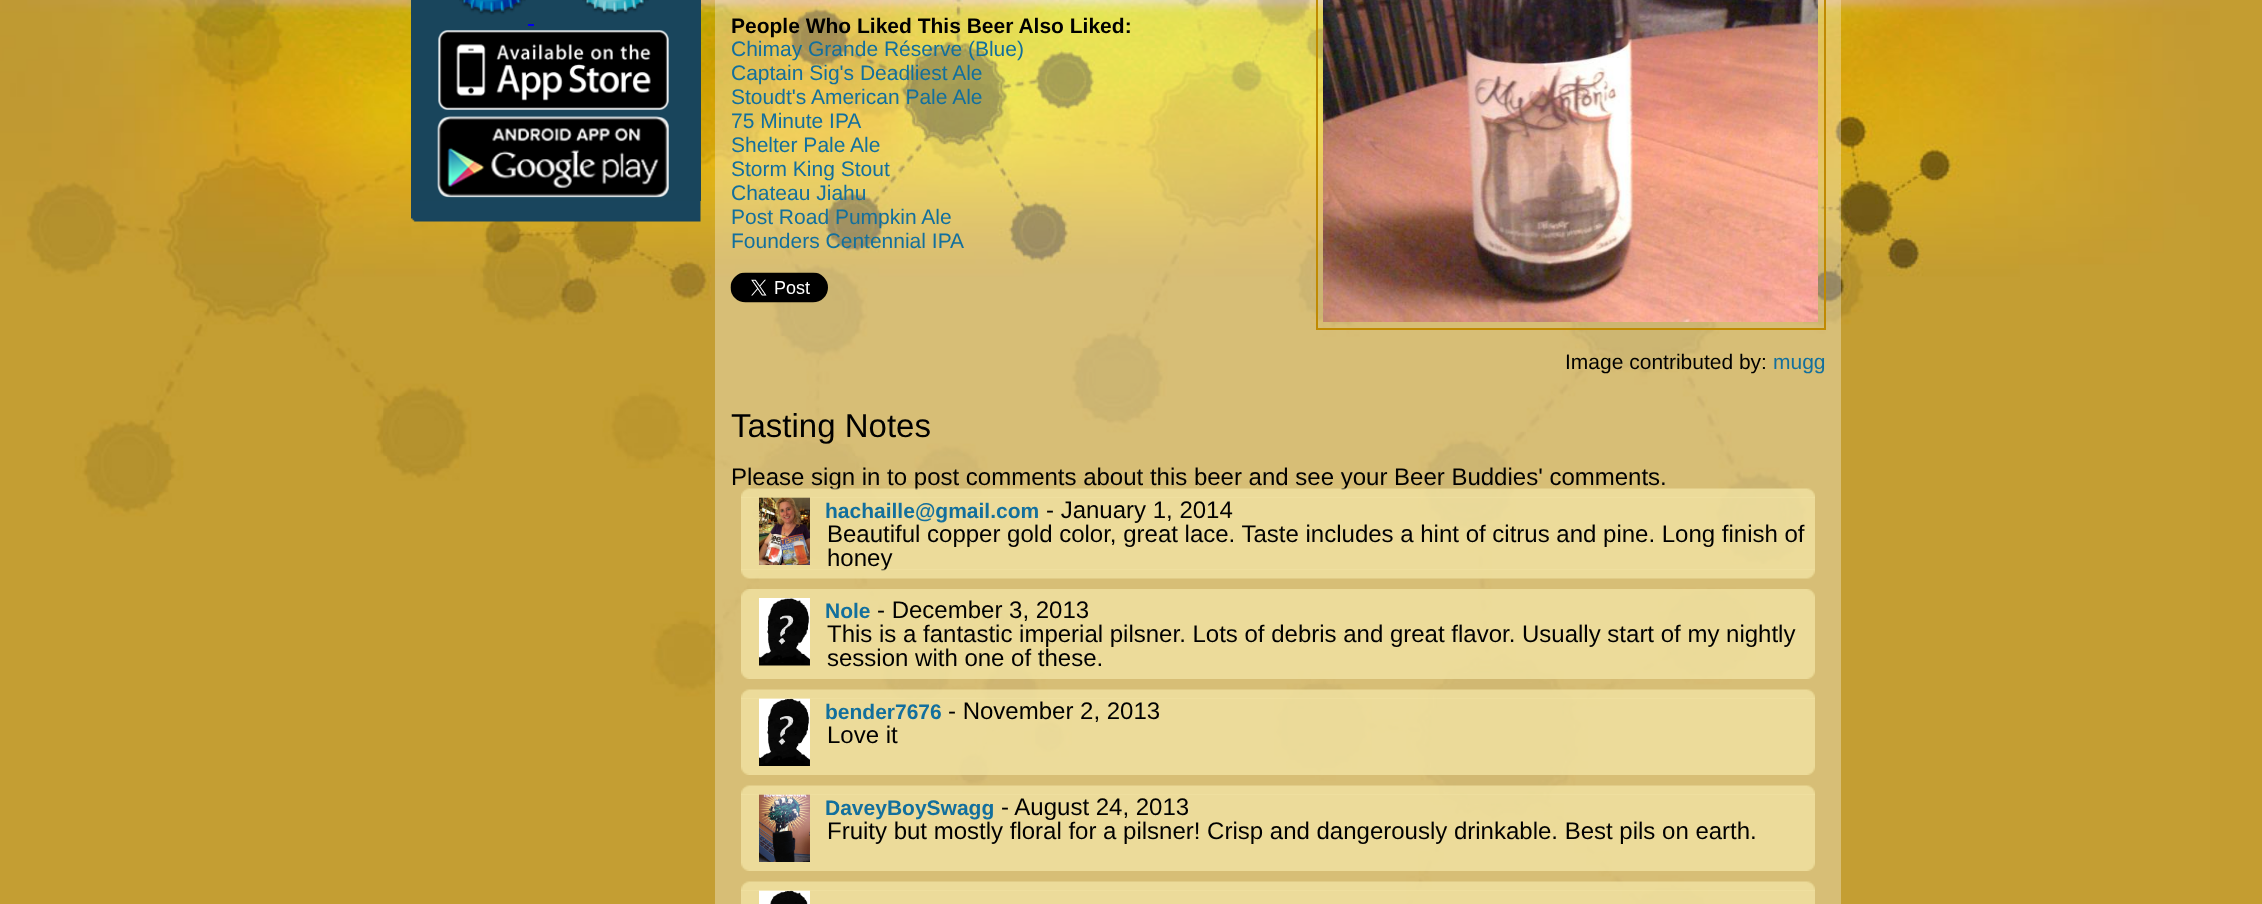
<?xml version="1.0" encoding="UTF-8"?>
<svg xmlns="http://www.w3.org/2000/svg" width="2262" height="904">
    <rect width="100%" height="100%" fill="#C49D31"/>
    <image x="0" y="0" width="2210" height="904" href="img_01.png"/>
    <rect x="411" y="0" width="290" height="201" fill="#19455C"/>
    <image x="459" y="0" width="67" height="15" href="img_02.png"/>
    <image x="582" y="0" width="67" height="15" href="img_03.png"/>
    <rect x="528" y="24" width="6" height="2" fill="#0000EE"/>
    <image x="438" y="30" width="231" height="80" href="img_04.png"/>
    <image x="437" y="116" width="232" height="82" href="img_05.png"/>
    <image x="411" y="201" width="290" height="21" href="img_06.png"/>
    <rect x="715" y="0" width="1126" height="904" fill="#FFFFFF" fill-opacity="0.33"/>
    <text x="731" y="33" font-family="Liberation Sans" font-size="21" font-weight="700" fill="#000000">People Who Liked This Beer Also Liked:</text>
    <text font-family="Liberation Sans" font-size="21" fill="#126F9D">
        <tspan x="731" y="56">Chimay Grande Réserve (Blue)</tspan>
        <tspan x="731" y="80">Captain Sig's Deadliest Ale</tspan>
        <tspan x="731" y="104">Stoudt's American Pale Ale</tspan>
        <tspan x="731" y="128">75 Minute IPA</tspan>
        <tspan x="731" y="152">Shelter Pale Ale</tspan>
        <tspan x="731" y="176">Storm King Stout</tspan>
        <tspan x="731" y="200">Chateau Jiahu</tspan>
        <tspan x="731" y="224">Post Road Pumpkin Ale</tspan>
        <tspan x="731" y="248">Founders Centennial IPA</tspan>
    </text>
    <image x="730" y="272" width="98" height="31" href="img_07.png"/>
    <rect x="1317" y="-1" width="508" height="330" fill="none" stroke="#C08A02" stroke-width="2"/>
    <image x="1323" y="0" width="495" height="322" href="img_08.png"/>
    <text x="1565" y="369" font-family="Liberation Sans" font-size="21" fill="#000000">Image contributed by:</text>
    <text x="1773" y="369" font-family="Liberation Sans" font-size="21" fill="#126F9D">mugg</text>
    <text x="731" y="437" font-family="Liberation Sans" font-size="33" fill="#000000">Tasting Notes</text>
    <text x="731" y="485" font-family="Liberation Sans" font-size="24" fill="#000000">Please sign in to post comments about this beer and see your Beer Buddies' comments.</text>
    <rect x="741" y="497" width="1074" height="73" fill="#F4E6A7" fill-opacity="0.73"/>
    <image x="759" y="497" width="51" height="68" href="img_10.png"/>
    <image x="741" y="488" width="1074" height="10" href="img_09.png"/>
    <text x="825" y="518" font-family="Liberation Sans" font-size="21" font-weight="700" fill="#126F9D">hachaille@gmail.com</text>
    <text x="1046" y="518" font-family="Liberation Sans" font-size="24" fill="#000000">- January 1, 2014</text>
    <text font-family="Liberation Sans" font-size="24" fill="#000000">
        <tspan x="827" y="542">Beautiful copper gold color, great lace. Taste includes a hint of citrus and pine. Long finish of</tspan>
        <tspan x="827" y="566">honey</tspan>
    </text>
    <image x="741" y="569" width="1074" height="10" href="img_11.png"/>
    <image x="741" y="589" width="1074" height="9" href="img_12.png"/>
    <rect x="741" y="598" width="1074" height="72" fill="#F4E6A7" fill-opacity="0.73"/>
    <image x="759" y="598" width="51" height="68" href="img_13.png"/>
    <text x="825" y="618" font-family="Liberation Sans" font-size="21" font-weight="700" fill="#126F9D">Nole</text>
    <text x="877" y="618" font-family="Liberation Sans" font-size="24" fill="#000000">- December 3, 2013</text>
    <text font-family="Liberation Sans" font-size="24" fill="#000000">
        <tspan x="827" y="642">This is a fantastic imperial pilsner. Lots of debris and great flavor. Usually start of my nightly</tspan>
        <tspan x="827" y="666">session with one of these.</tspan>
    </text>
    <image x="741" y="670" width="1074" height="9" href="img_14.png"/>
    <rect x="741" y="698" width="1074" height="68" fill="#F4E6A7" fill-opacity="0.73"/>
    <image x="759" y="698" width="51" height="68" href="img_16.png"/>
    <image x="741" y="689" width="1074" height="10" href="img_15.png"/>
    <text x="825" y="719" font-family="Liberation Sans" font-size="21" font-weight="700" fill="#126F9D">bender7676</text>
    <text x="948" y="719" font-family="Liberation Sans" font-size="24" fill="#000000">- November 2, 2013</text>
    <text x="827" y="743" font-family="Liberation Sans" font-size="24" fill="#000000">Love it</text>
    <image x="741" y="766" width="1074" height="9" href="img_17.png"/>
    <rect x="741" y="794" width="1074" height="68" fill="#F4E6A7" fill-opacity="0.73"/>
    <image x="759" y="794" width="51" height="68" href="img_19.png"/>
    <image x="741" y="785" width="1074" height="10" href="img_18.png"/>
    <text x="825" y="815" font-family="Liberation Sans" font-size="21" font-weight="700" fill="#126F9D">DaveyBoySwagg</text>
    <text x="1001" y="815" font-family="Liberation Sans" font-size="24" fill="#000000">- August 24, 2013</text>
    <text x="827" y="839" font-family="Liberation Sans" font-size="24" fill="#000000">Fruity but mostly floral for a pilsner! Crisp and dangerously drinkable. Best pils on earth.</text>
    <image x="741" y="862" width="1074" height="9" href="img_20.png"/>
    <rect x="741" y="890" width="1074" height="14" fill="#F4E6A7" fill-opacity="0.73"/>
    <image x="759" y="890" width="51" height="14" href="img_22.png"/>
    <image x="741" y="881" width="1074" height="10" href="img_21.png"/>
</svg>
